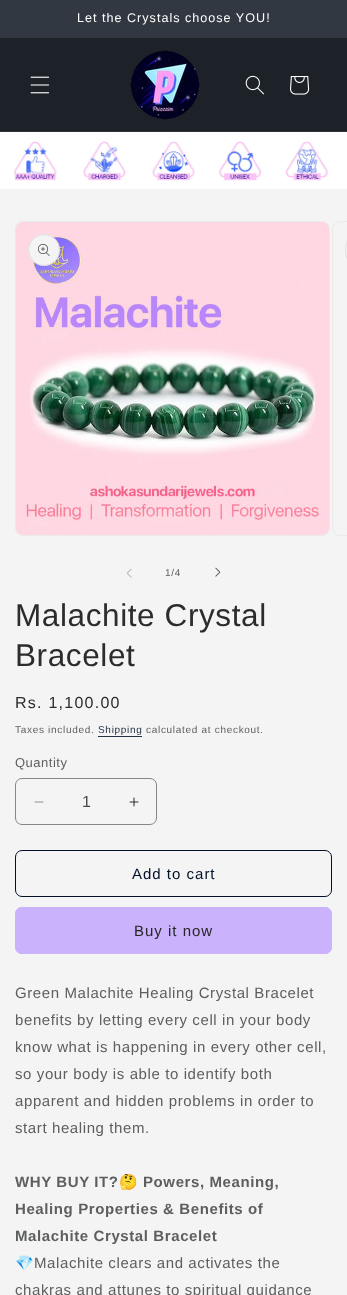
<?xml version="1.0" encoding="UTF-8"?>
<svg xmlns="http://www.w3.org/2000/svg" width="347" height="1295">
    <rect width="100%" height="100%" fill="#F4F4F4"/>
    <rect x="0" y="0" width="347" height="38" fill="#323841"/>
    <text x="77" y="22" font-family="Liberation Sans" font-size="12.6" letter-spacing="1" fill="#FFFFFF">Let the Crystals choose YOU!</text>
    <rect x="0" y="38" width="347" height="93" fill="#1C2228"/>
    <rect x="0" y="131" width="347" height="1" fill="#2E3439"/>
    <image x="30" y="76" width="20" height="18" href="img_01.png"/>
    <image x="130" y="50" width="70" height="70" href="img_02.png"/>
    <image x="245" y="75" width="19" height="20" href="img_03.png"/>
    <image x="290" y="76" width="20" height="19" href="img_04.png"/>
    <image x="0" y="132" width="347" height="57" href="img_05.png"/>
    <rect x="15.5" y="221.5" width="314" height="314" rx="7.5" fill="none" stroke="#EAEAEA"/>
    <image x="16" y="222" width="313" height="313" href="img_06.png"/>
    <circle cx="44" cy="250" r="16" fill="#F4F4F4"/>
    <circle cx="44" cy="250" r="15.5" fill="none" stroke="#2B2C2D" stroke-opacity="0.1"/>
    <image x="38" y="244" width="12" height="12" href="img_07.png"/>
    <rect x="332.5" y="221.5" width="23" height="314" rx="7.5" fill="none" stroke="#EAEAEA"/>
    <rect x="345.5" y="234.5" width="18" height="31" rx="15.5" fill="none" stroke="#E0E0E0"/>
    <image x="126" y="568" width="6" height="10" href="img_08.png"/>
    <text x="165" y="576" font-family="Liberation Sans" font-size="10" letter-spacing="0.7" fill="#5D5E5F">1/4</text>
    <image x="215" y="567" width="6" height="10" href="img_09.png"/>
    <text font-family="Liberation Sans" font-size="31.5" letter-spacing="0.6" fill="#2B2C2D">
        <tspan x="15" y="626">Malachite Crystal</tspan>
        <tspan x="15" y="666">Bracelet</tspan>
    </text>
    <text x="15" y="708" font-family="Liberation Sans" font-size="16" letter-spacing="1.25" fill="#2B2C2D">Rs. 1,100.00</text>
    <text x="15" y="733" font-family="Liberation Sans" font-size="10" letter-spacing="0.7" fill="#5D5E5F">Taxes included.</text>
    <text x="98" y="733" font-family="Liberation Sans" font-size="10" letter-spacing="0.7" fill="#253347">Shipping</text>
    <rect x="98" y="736" width="44" height="1" fill="#253347"/>
    <text x="146" y="733" font-family="Liberation Sans" font-size="10" letter-spacing="0.7" fill="#5D5E5F">calculated at checkout.</text>
    <text x="15" y="767" font-family="Liberation Sans" font-size="13" letter-spacing="0.5" fill="#5D5E5F">Quantity</text>
    <image x="34" y="801" width="10" height="2" href="img_10.png"/>
    <image x="129" y="797" width="10" height="10" href="img_11.png"/>
    <rect x="15.5" y="778.5" width="141" height="46" rx="6.5" fill="none" stroke="#858687"/>
    <text x="82" y="807" font-family="Liberation Sans" font-size="16" fill="#494A4B">1</text>
    <rect x="15.5" y="850.5" width="316" height="46" rx="6.5" fill="none" stroke="#001128"/>
    <text x="132" y="879" font-family="Liberation Sans" font-size="15" letter-spacing="1" fill="#001128">Add to cart</text>
    <rect x="15" y="907" width="317" height="47" rx="7" fill="#CBB2FC"/>
    <rect x="15.5" y="907.5" width="316" height="46" rx="6.5" fill="none" stroke="#CBB2FC"/>
    <text x="134" y="936" font-family="Liberation Sans" font-size="15" letter-spacing="1" fill="#262626">Buy it now</text>
    <text font-family="Liberation Sans" font-size="15" letter-spacing="0.6" fill="#5D5E5F">
        <tspan x="15" y="998">Green Malachite Healing Crystal Bracelet</tspan>
        <tspan x="15" y="1025">benefits by letting every cell in your body</tspan>
        <tspan x="15" y="1052">know what is happening in every other cell,</tspan>
        <tspan x="15" y="1079">so your body is able to identify both</tspan>
        <tspan x="15" y="1106">apparent and hidden problems in order to</tspan>
        <tspan x="15" y="1133">start healing them.</tspan>
    </text>
    <text x="15" y="1187" font-family="Liberation Sans" font-size="15" font-weight="700" letter-spacing="0.6" fill="#5D5E5F">WHY BUY IT?</text>
    <text x="119" y="1187" font-family="Noto Color Emoji" font-size="15" font-weight="700" letter-spacing="0.6" fill="#5D5E5F">🤔</text>
    <text x="143" y="1187" font-family="Liberation Sans" font-size="15" font-weight="700" letter-spacing="0.6" fill="#5D5E5F">Powers, Meaning,</text>
    <text font-family="Liberation Sans" font-size="15" font-weight="700" letter-spacing="0.6" fill="#5D5E5F">
        <tspan x="15" y="1214">Healing Properties &amp; Benefits of</tspan>
        <tspan x="15" y="1241">Malachite Crystal Bracelet</tspan>
    </text>
    <text x="15" y="1268" font-family="Noto Color Emoji" font-size="15" letter-spacing="0.6" fill="#5D5E5F">💎</text>
    <text x="34" y="1268" font-family="Liberation Sans" font-size="15" letter-spacing="0.6" fill="#5D5E5F">Malachite clears and activates the</text>
    <text x="15" y="1295" font-family="Liberation Sans" font-size="15" letter-spacing="0.6" fill="#5D5E5F">chakras and attunes to spiritual guidance</text>
</svg>
